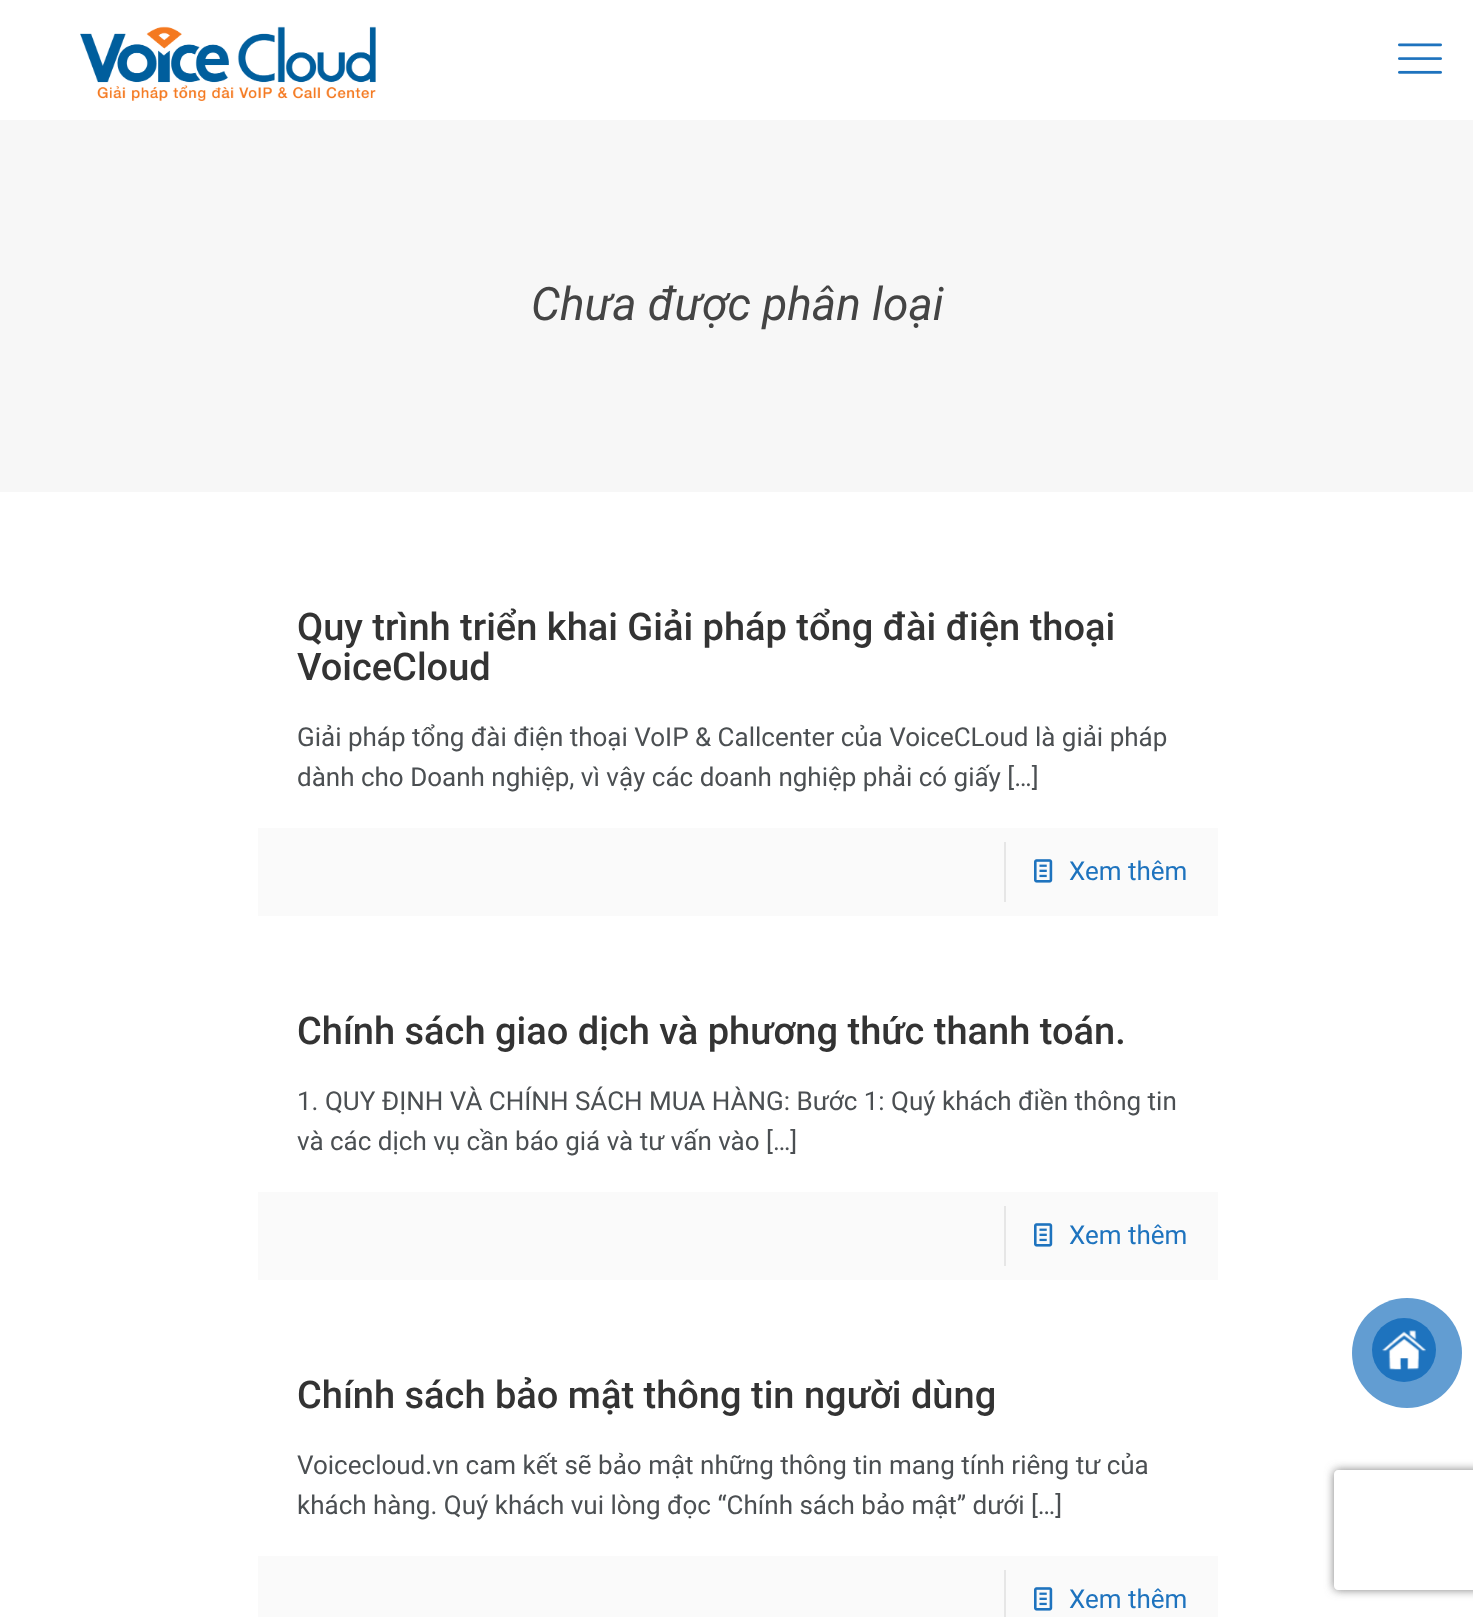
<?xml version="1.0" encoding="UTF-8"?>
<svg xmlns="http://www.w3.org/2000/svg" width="1473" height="1617">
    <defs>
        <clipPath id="clip1"><path d="M 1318 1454 H 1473 V 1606 H 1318 Z M 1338 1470 H 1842 C 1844 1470 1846 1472 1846 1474 V 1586 C 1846 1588 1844 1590 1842 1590 H 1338 C 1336 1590 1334 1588 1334 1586 V 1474 C 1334 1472 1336 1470 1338 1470 Z" clip-rule="evenodd"/></clipPath>
        <filter id="blur1" x="-50%" y="-200%" width="200%" height="500%"><feGaussianBlur stdDeviation="5"/></filter>
    </defs>
    <rect width="100%" height="100%" fill="#FFFFFF"/>
    <image x="80" y="26" width="296" height="75" href="img_01.png"/>
    <image x="1398" y="43" width="44" height="31" href="img_02.png"/>
    <rect x="0" y="120" width="1473" height="372" fill="#F7F7F7"/>
    <text x="531" y="320" font-family="Roboto" font-size="46" font-style="italic" fill="#444444">Chưa được phân loại</text>
    <text font-family="Roboto" font-size="38" font-weight="500" fill="#333333">
        <tspan x="297" y="640">Quy trình triển khai Giải pháp tổng đài điện thoại</tspan>
        <tspan x="297" y="680">VoiceCloud</tspan>
    </text>
    <text font-family="Roboto" font-size="26" fill="#4B4F52">
        <tspan x="297" y="746">Giải pháp tổng đài điện thoại VoIP &amp; Callcenter của VoiceCLoud là giải pháp</tspan>
        <tspan x="297" y="786">dành cho Doanh nghiệp, vì vậy các doanh nghiệp phải có giấy […]</tspan>
    </text>
    <rect x="258" y="828" width="960" height="88" fill="#FAFAFA"/>
    <rect x="1004" y="842" width="2" height="60" fill="#E6E6E6"/>
    <image x="1034" y="859" width="19" height="24" href="img_03.png"/>
    <text x="1069" y="880" font-family="Roboto" font-size="26" fill="#1E73BE">Xem thêm</text>
    <text x="297" y="1044" font-family="Roboto" font-size="38" font-weight="500" fill="#333333">Chính sách giao dịch và phương thức thanh toán.</text>
    <text font-family="Roboto" font-size="26" fill="#4B4F52">
        <tspan x="297" y="1110">1. QUY ĐỊNH VÀ CHÍNH SÁCH MUA HÀNG: Bước 1: Quý khách điền thông tin</tspan>
        <tspan x="297" y="1150">và các dịch vụ cần báo giá và tư vấn vào […]</tspan>
    </text>
    <rect x="258" y="1192" width="960" height="88" fill="#FAFAFA"/>
    <rect x="1004" y="1206" width="2" height="60" fill="#E6E6E6"/>
    <image x="1034" y="1223" width="19" height="24" href="img_03.png"/>
    <text x="1069" y="1244" font-family="Roboto" font-size="26" fill="#1E73BE">Xem thêm</text>
    <text x="297" y="1408" font-family="Roboto" font-size="38" font-weight="500" fill="#333333">Chính sách bảo mật thông tin người dùng</text>
    <text font-family="Roboto" font-size="26" fill="#4B4F52">
        <tspan x="297" y="1474">Voicecloud.vn cam kết sẽ bảo mật những thông tin mang tính riêng tư của</tspan>
        <tspan x="297" y="1514">khách hàng. Quý khách vui lòng đọc “Chính sách bảo mật” dưới […]</tspan>
    </text>
    <rect x="258" y="1556" width="960" height="61" fill="#FAFAFA"/>
    <rect x="1004" y="1570" width="2" height="47" fill="#E6E6E6"/>
    <image x="1034" y="1587" width="19" height="24" href="img_03.png"/>
    <text x="1069" y="1608" font-family="Roboto" font-size="26" fill="#1E73BE">Xem thêm</text>
    <circle cx="1407" cy="1353" r="55" fill="#629DD2"/>
    <circle cx="1404" cy="1350" r="32" fill="#1E73BE"/>
    <image x="1382" y="1330" width="44" height="40" href="img_04.png"/>
    <g clip-path="url(#clip1)">
        <rect x="1334" y="1470" width="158" height="120" rx="4" fill="#808080" filter="url(#blur1)"/>
    </g>
</svg>
